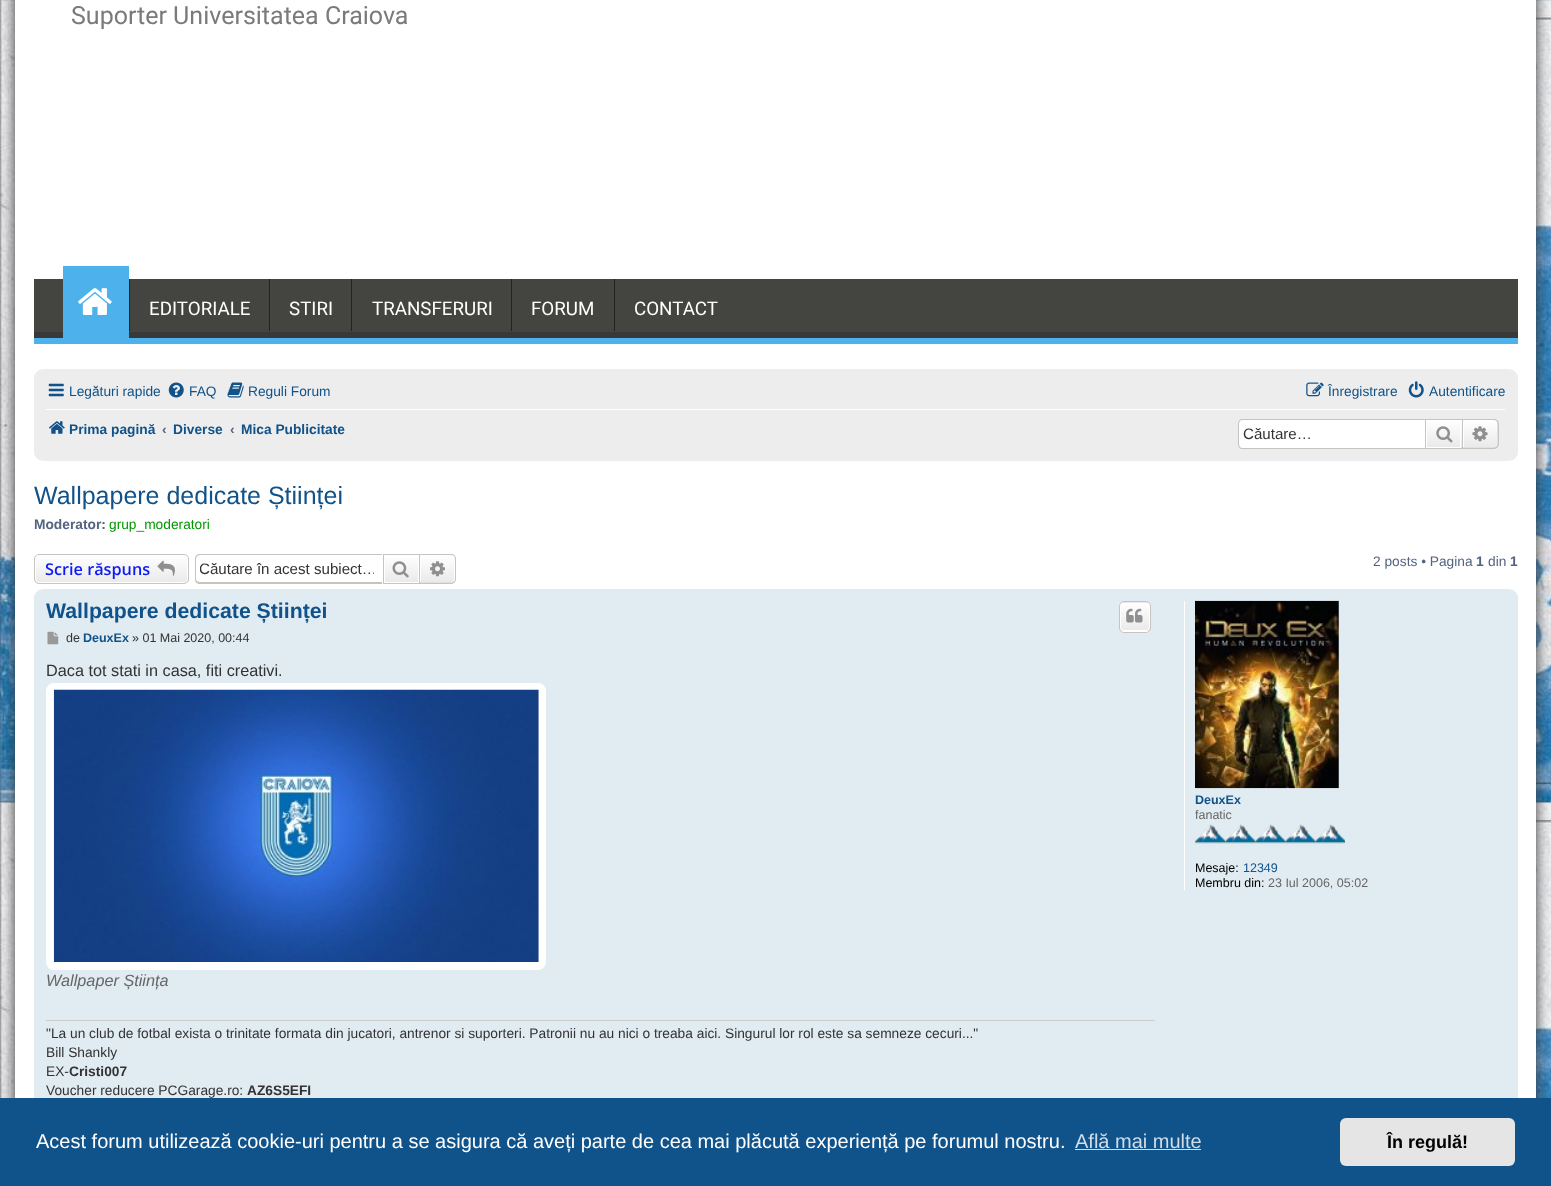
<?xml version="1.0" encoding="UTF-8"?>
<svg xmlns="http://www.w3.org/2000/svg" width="1551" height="1186">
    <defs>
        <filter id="blur1" x="-50%" y="-200%" width="200%" height="500%"><feGaussianBlur stdDeviation="7.5"/></filter>
        <clipPath id="clip1"><rect x="34" y="279" width="1484" height="59"/></clipPath>
        <linearGradient id="g1" gradientUnits="userSpaceOnUse" x1="1444" y1="420" x2="1444" y2="448"><stop offset="0" stop-color="#FFFFFF"/><stop offset="1" stop-color="#E9E9E9"/></linearGradient>
        <linearGradient id="g2" gradientUnits="userSpaceOnUse" x1="1480" y1="420" x2="1480" y2="448"><stop offset="0" stop-color="#FFFFFF"/><stop offset="1" stop-color="#E9E9E9"/></linearGradient>
        <clipPath id="clip2"><rect x="34" y="554" width="155" height="30" rx="5"/></clipPath>
        <linearGradient id="g3" gradientUnits="userSpaceOnUse" x1="111" y1="555" x2="111" y2="583"><stop offset="0" stop-color="#FFFFFF"/><stop offset="1" stop-color="#E9E9E9"/></linearGradient>
        <clipPath id="clip3"><rect x="200" y="560" width="174" height="18"/></clipPath>
        <linearGradient id="g4" gradientUnits="userSpaceOnUse" x1="401" y1="555" x2="401" y2="583"><stop offset="0" stop-color="#FFFFFF"/><stop offset="1" stop-color="#E9E9E9"/></linearGradient>
        <linearGradient id="g5" gradientUnits="userSpaceOnUse" x1="438" y1="555" x2="438" y2="583"><stop offset="0" stop-color="#FFFFFF"/><stop offset="1" stop-color="#E9E9E9"/></linearGradient>
        <clipPath id="clip4"><rect x="1119" y="601" width="32" height="32" rx="5"/></clipPath>
        <linearGradient id="g6" gradientUnits="userSpaceOnUse" x1="1135" y1="574" x2="1135" y2="603"><stop offset="0" stop-color="#FFFFFF"/><stop offset="1" stop-color="#E9E9E9"/></linearGradient>
        <linearGradient id="g7" gradientUnits="userSpaceOnUse" x1="1135" y1="603" x2="1135" y2="631"><stop offset="0" stop-color="#FFFFFF"/><stop offset="1" stop-color="#E9E9E9"/></linearGradient>
        <linearGradient id="g8" gradientUnits="userSpaceOnUse" x1="1135" y1="631" x2="1135" y2="660"><stop offset="0" stop-color="#FFFFFF"/><stop offset="1" stop-color="#E9E9E9"/></linearGradient>
    </defs>
    <rect width="100%" height="100%" fill="#FFFFFF"/>
    <image x="0" y="0" width="1551" height="1098" href="img_01.png"/>
    <rect x="15" y="-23" width="1521" height="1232" fill="#2D2D2D" filter="url(#blur1)"/>
    <rect x="15" y="0" width="1521" height="1098" fill="#FFFFFF"/>
    <text x="71" y="24" font-family="Roboto" font-size="25" fill="#7A7A7A">Suporter Universitatea Craiova</text>
    <rect x="34" y="279" width="1484" height="53" fill="#444441"/>
    <g clip-path="url(#clip1)">
        <path d="M -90 155 H 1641 V 461 H -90 Z M 32 271 H 1516 C 1517 271 1518 272 1518 272 V 331 C 1518 332 1517 332 1516 332 H 32 C 32 332 31 332 31 331 V 272 C 31 272 32 271 32 271 Z" fill="#393939" fill-rule="evenodd"/>
    </g>
    <rect x="34" y="338" width="1484" height="6" fill="#4DB2EC"/>
    <rect x="63" y="266" width="66" height="72" fill="#4DB2EC"/>
    <image x="78" y="288" width="34" height="27" href="img_02.png"/>
    <rect x="129" y="279" width="1" height="52" fill="#222222"/>
    <text x="149" y="315" font-family="Roboto" font-size="18.75" fill="#FFFFFF">EDITORIALE</text>
    <rect x="269" y="279" width="1" height="52" fill="#222222"/>
    <text x="289" y="315" font-family="Roboto" font-size="18.75" fill="#FFFFFF">STIRI</text>
    <rect x="351" y="279" width="1" height="52" fill="#222222"/>
    <text x="372" y="315" font-family="Roboto" font-size="18.75" fill="#FFFFFF">TRANSFERURI</text>
    <rect x="511" y="279" width="1" height="52" fill="#222222"/>
    <text x="531" y="315" font-family="Roboto" font-size="18.75" fill="#FFFFFF">FORUM</text>
    <rect x="614" y="279" width="1" height="52" fill="#222222"/>
    <text x="634" y="315" font-family="Roboto" font-size="18.75" fill="#FFFFFF">CONTACT</text>
    <rect x="34" y="369" width="1484" height="92" rx="9" fill="#EDEDED"/>
    <image x="48" y="383" width="16" height="14" href="img_03.png"/>
    <text x="69" y="396" font-family="Liberation Sans" font-size="13.75" fill="#105289">Legături rapide</text>
    <image x="168" y="382" width="16" height="16" href="img_04.png"/>
    <text x="189" y="396" font-family="Liberation Sans" font-size="13.75" fill="#105289">FAQ</text>
    <image x="227" y="382" width="17" height="16" href="img_05.png"/>
    <text x="248" y="396" font-family="Liberation Sans" font-size="13.75" fill="#105289">Reguli Forum</text>
    <image x="1306" y="382" width="18" height="15" href="img_06.png"/>
    <text x="1328" y="396" font-family="Liberation Sans" font-size="13.75" fill="#105289">Înregistrare</text>
    <image x="1408" y="381" width="16" height="17" href="img_07.png"/>
    <text x="1429" y="396" font-family="Liberation Sans" font-size="13.75" fill="#105289">Autentificare</text>
    <rect x="46" y="409" width="1459" height="1" fill="#FFFFFF"/>
    <image x="49" y="421" width="16" height="13" href="img_08.png"/>
    <text x="69" y="434" font-family="Liberation Sans" font-size="13.75" font-weight="700" fill="#105289">Prima pagină</text>
    <text x="162" y="434" font-family="Liberation Sans" font-size="13.75" font-weight="700" fill="#536482">‹</text>
    <text x="173" y="434" font-family="Liberation Sans" font-size="13.75" font-weight="700" fill="#105289">Diverse</text>
    <text x="230" y="434" font-family="Liberation Sans" font-size="13.75" font-weight="700" fill="#536482">‹</text>
    <text x="241" y="434" font-family="Liberation Sans" font-size="13.75" font-weight="700" fill="#105289">Mica Publicitate</text>
    <path d="M 1243 420 H 1425 V 448 H 1243 C 1241 448 1239 446 1239 444 V 424 C 1239 422 1241 420 1243 420 Z" fill="#FFFFFF"/>
    <path d="M 1242 419 H 1425 V 449 H 1242 C 1240 449 1238 447 1238 444 V 424 C 1238 421 1240 419 1242 419 Z M 1242 420 H 1425 V 448 H 1242 C 1240 448 1239 446 1239 444 V 424 C 1239 422 1240 420 1242 420 Z" fill="#C7C3BF" fill-rule="evenodd"/>
    <text x="1243" y="439" font-family="Liberation Sans" font-size="15.1" fill="#333333">Căutare…</text>
    <rect x="1427" y="420" width="35" height="28" fill="url(#g1)"/>
    <rect x="1426.5" y="420.5" width="34" height="27" fill="none" stroke="#FFFFFF"/>
    <rect x="1425.5" y="419.5" width="37" height="29" fill="none" stroke="#C7C3BF"/>
    <image x="1436" y="426" width="17" height="17" href="img_09.png"/>
    <path d="M 1463.5 420.5 H 1494 C 1496 420.5 1497.5 422 1497.5 424 V 444 C 1497.5 446 1496 447.5 1494 447.5 H 1463.5 Z" fill="url(#g2)" stroke="#FFFFFF"/>
    <path d="M 1462.5 419 H 1494 C 1496.5 419 1499 421 1499 424 V 444 C 1499 446.5 1496.5 449 1494 449 H 1462.5 Z M 1462.5 420 H 1494 C 1496 420 1497.5 421.5 1497.5 424 V 444 C 1497.5 446 1496 447.5 1494 447.5 H 1462.5 Z" fill="#C7C3BF" fill-rule="evenodd"/>
    <image x="1472" y="426" width="16" height="16" href="img_10.png"/>
    <text x="34" y="504" font-family="Liberation Sans" font-size="25" fill="#105289">Wallpapere dedicate Științei</text>
    <text x="34" y="529" font-family="Liberation Sans" font-size="13.75" font-weight="700" fill="#536482">Moderator:</text>
    <text x="109" y="529" font-family="Liberation Sans" font-size="13.75" fill="#009900">grup_moderatori</text>
    <g clip-path="url(#clip2)">
        <rect x="34" y="555" width="155" height="28" fill="url(#g3)"/>
    </g>
    <rect x="35.5" y="555.5" width="152" height="27" rx="3.5" fill="none" stroke="#FFFFFF"/>
    <rect x="34.5" y="554.5" width="154" height="29" rx="4.5" fill="none" stroke="#C7C3BF"/>
    <text x="45" y="575" font-family="Open Sans" font-size="16.25" font-weight="600" fill="#0C1BF4">Scrie răspuns</text>
    <image x="157" y="560" width="18" height="17" href="img_11.png"/>
    <path d="M 200 554 H 382 V 584 H 200 C 197 584 195 582 195 579 V 559 C 195 556 197 554 200 554 Z M 200 555 H 382 V 582 H 200 C 198 582 196 581 196 579 V 559 C 196 557 198 555 200 555 Z" fill="#C7C3BF" fill-rule="evenodd"/>
    <g clip-path="url(#clip3)">
        <text x="199" y="574" font-family="Liberation Sans" font-size="15.1" fill="#333333">Căutare în acest subiect…</text>
    </g>
    <rect x="385" y="558" width="33" height="24" fill="url(#g4)"/>
    <rect x="383.5" y="554.5" width="36" height="29" fill="none" stroke="#C7C3BF"/>
    <image x="392" y="561" width="17" height="17" href="img_12.png"/>
    <path d="M 420.5 555.5 H 451 C 453 555.5 454.5 557 454.5 559 V 579 C 454.5 581 453 582.5 451 582.5 H 420.5 Z" fill="url(#g5)" stroke="#FFFFFF"/>
    <path d="M 420 554 H 451 C 454 554 456 556 456 559 V 579 C 456 581.5 454 584 451 584 H 420 Z M 420 555 H 451 C 453.5 555 455 556.5 455 559 V 579 C 455 581 453.5 582.5 451 582.5 H 420 Z" fill="#C7C3BF" fill-rule="evenodd"/>
    <image x="430" y="561" width="15" height="16" href="img_13.png"/>
    <text x="1373" y="566" font-family="Liberation Sans" font-size="13.75" fill="#536482">2 posts • Pagina</text>
    <text x="1476" y="566" font-family="Liberation Sans" font-size="13.75" font-weight="700" fill="#536482">1</text>
    <text x="1488" y="566" font-family="Liberation Sans" font-size="13.75" fill="#536482">din</text>
    <text x="1510" y="566" font-family="Liberation Sans" font-size="13.75" font-weight="700" fill="#536482">1</text>
    <rect x="34" y="589" width="1484" height="537" rx="9" fill="#E1EBF2"/>
    <text x="46" y="618" font-family="Liberation Sans" font-size="21.25" font-weight="700" fill="#105289">Wallpapere dedicate Științei</text>
    <g clip-path="url(#clip4)">
        <rect x="1119" y="601" width="32" height="2" fill="url(#g6)"/>
        <rect x="1119" y="603" width="32" height="28" fill="url(#g7)"/>
        <rect x="1119" y="631" width="32" height="2" fill="url(#g8)"/>
    </g>
    <rect x="1120.5" y="603.5" width="29" height="27" rx="3.5" fill="none" stroke="#FFFFFF"/>
    <rect x="1119.5" y="601.5" width="31" height="31" rx="4.5" fill="none" stroke="#C7C3BF"/>
    <image x="1126" y="608" width="17" height="15" href="img_14.png"/>
    <image x="47" y="631" width="12" height="14" href="img_15.png"/>
    <text x="66" y="642" font-family="Liberation Sans" font-size="12.5" fill="#333333">de</text>
    <text x="83" y="642" font-family="Liberation Sans" font-size="12.5" font-weight="700" fill="#105289">DeuxEx</text>
    <text x="132" y="642" font-family="Liberation Sans" font-size="12.5" fill="#333333">» 01 Mai 2020, 00:44</text>
    <text x="46" y="676" font-family="Liberation Sans" font-size="16.25" fill="#333333">Daca tot stati in casa, fiti creativi.</text>
    <rect x="46" y="683" width="500" height="287" rx="8" fill="#FFFFFF"/>
    <image x="53" y="689" width="486" height="273" href="img_16.png"/>
    <text x="46" y="986" font-family="Liberation Sans" font-size="16.25" font-style="italic" fill="#666666">Wallpaper Știința</text>
    <rect x="46" y="1020" width="1109" height="1" fill="#CCCCCC"/>
    <text font-family="Liberation Sans" font-size="13.75" fill="#333333">
        <tspan x="46" y="1038">"La un club de fotbal exista o trinitate formata din jucatori, antrenor si suporteri. Patronii nu au nici o treaba aici. Singurul lor rol este sa semneze cecuri..."</tspan>
        <tspan x="46" y="1057">Bill Shankly</tspan>
        <tspan x="46" y="1076">EX-</tspan>
    </text>
    <text x="69" y="1076" font-family="Liberation Sans" font-size="13.75" font-weight="700" fill="#333333">Cristi007</text>
    <text x="46" y="1095" font-family="Liberation Sans" font-size="13.75" fill="#333333">Voucher reducere PCGarage.ro:</text>
    <text x="247" y="1095" font-family="Liberation Sans" font-size="13.75" font-weight="700" fill="#333333">AZ6S5EFI</text>
    <rect x="1184" y="601" width="1" height="289" fill="#FFFFFF"/>
    <image x="1195" y="600" width="144" height="189" href="img_17.png"/>
    <text x="1195" y="804" font-family="Liberation Sans" font-size="12.5" font-weight="700" fill="#105289">DeuxEx</text>
    <text x="1195" y="819" font-family="Liberation Sans" font-size="12.5" fill="#666666">fanatic</text>
    <image x="1195" y="824" width="150" height="20" href="img_18.png"/>
    <text x="1195" y="872" font-family="Liberation Sans" font-size="12.5" fill="#000000">Mesaje:</text>
    <text x="1243" y="872" font-family="Liberation Sans" font-size="12.5" fill="#105289">12349</text>
    <text x="1195" y="887" font-family="Liberation Sans" font-size="12.5" fill="#000000">Membru din:</text>
    <text x="1268" y="887" font-family="Liberation Sans" font-size="12.5" fill="#666666">23 Iul 2006, 05:02</text>
    <rect x="0" y="1098" width="1551" height="88" fill="#0F538A"/>
    <text x="36" y="1148" font-family="Liberation Sans" font-size="20" fill="#FFFFFF">Acest forum utilizează cookie-uri pentru a se asigura că aveți parte de cea mai plăcută experiență pe forumul nostru.</text>
    <text x="1075" y="1148" font-family="Liberation Sans" font-size="20" fill="#CFDDE8">Află mai multe</text>
    <rect x="1075" y="1149" width="126" height="1" fill="#CFDDE8"/>
    <rect x="1340" y="1118" width="175" height="48" rx="6" fill="#E5E5E5"/>
    <text x="1387" y="1148" font-family="Liberation Sans" font-size="18" font-weight="700" fill="#000000">În regulă!</text>
</svg>
